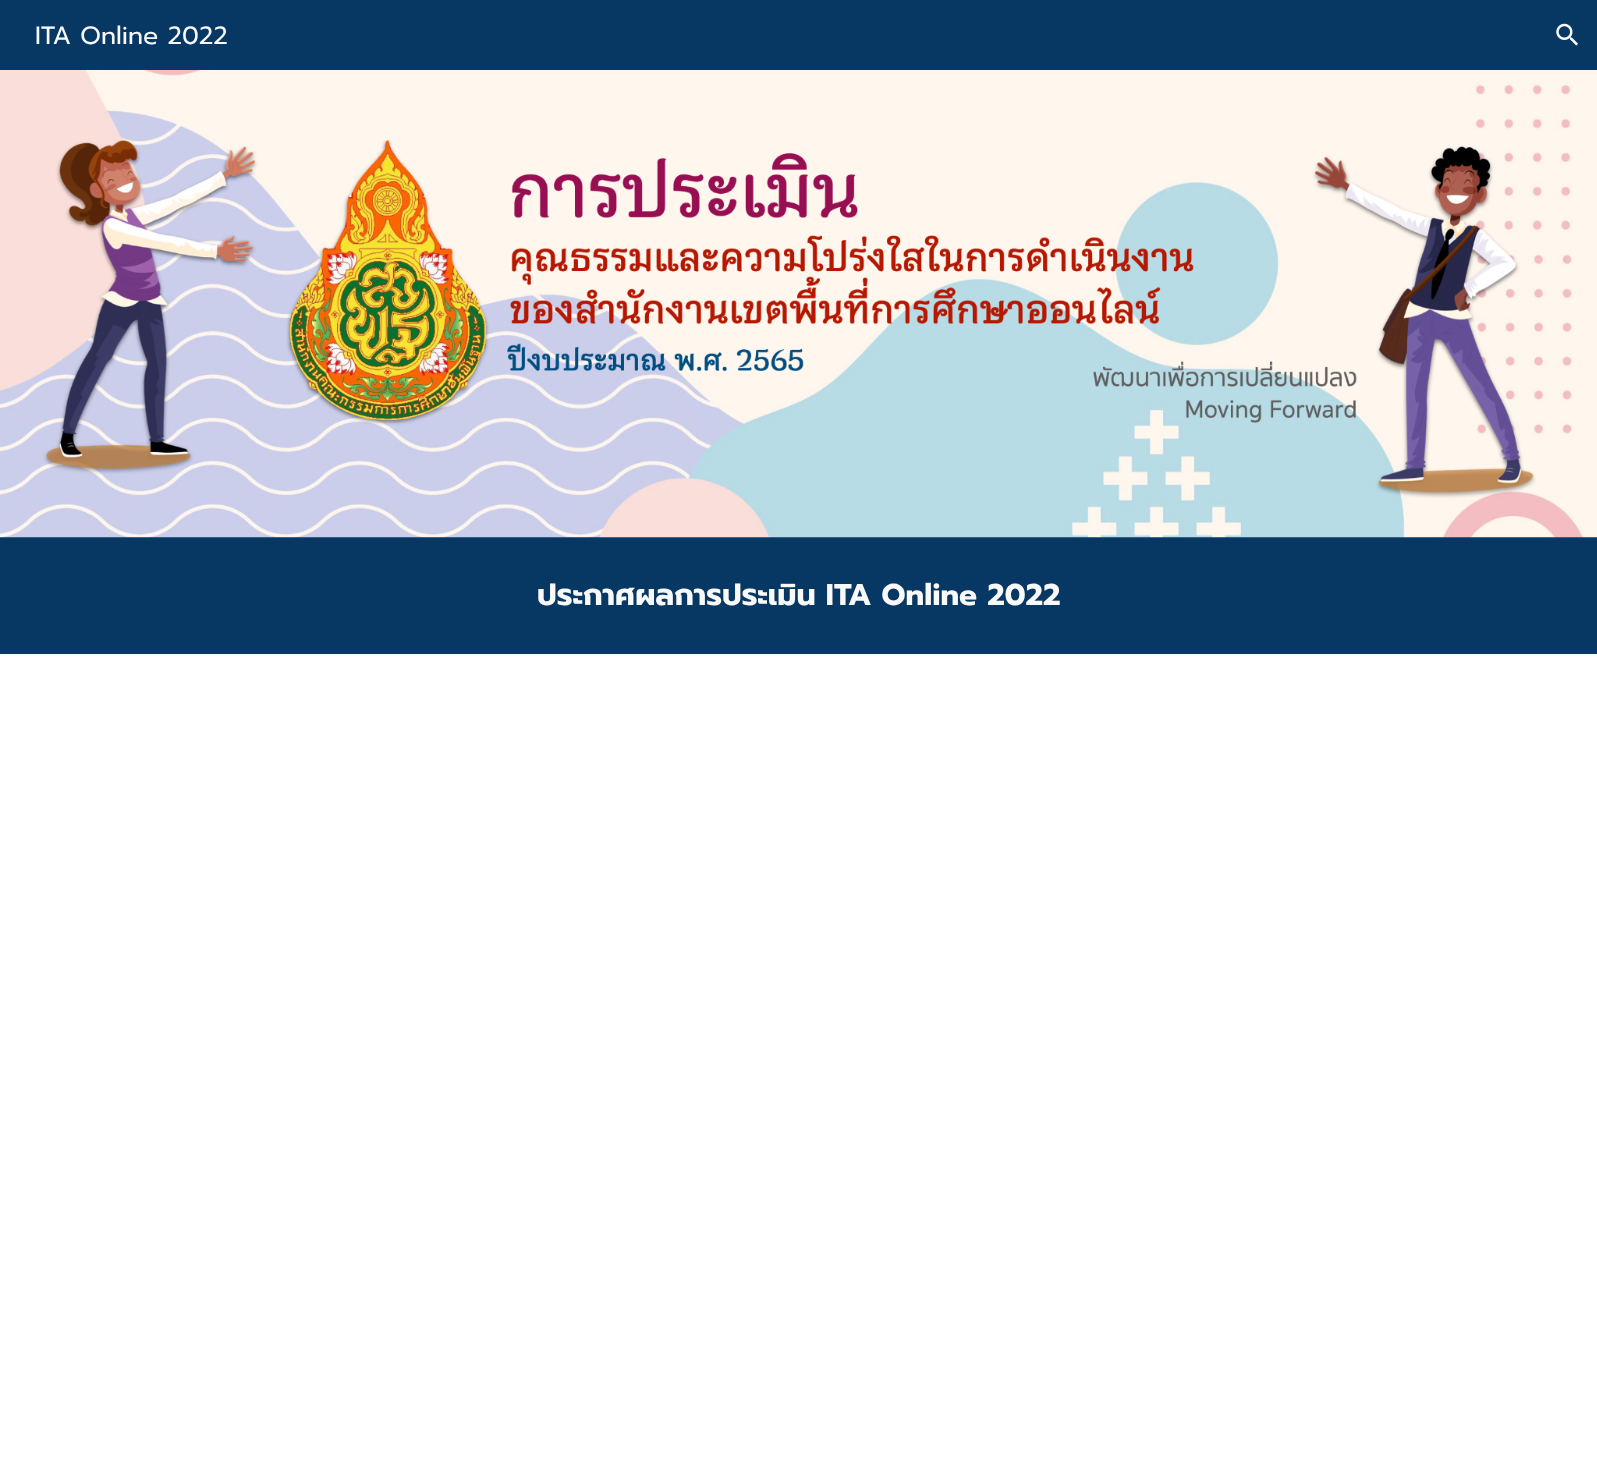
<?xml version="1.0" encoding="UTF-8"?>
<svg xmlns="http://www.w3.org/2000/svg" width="1597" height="1477">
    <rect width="100%" height="100%" fill="#FFFFFF"/>
    <rect x="0" y="0" width="1597" height="70" fill="#073763"/>
    <text x="35" y="44" font-family="Prompt" font-size="25" fill="#F9F9F9">ITA Online 2022</text>
    <image x="1556" y="23" width="22" height="23" href="img_01.png"/>
    <rect x="0" y="537" width="1597" height="117" fill="#073763"/>
    <image x="0" y="70" width="1597" height="468" href="img_02.png"/>
    <text x="537" y="605" font-family="Prompt" font-size="30" font-weight="700" fill="#F9F9F9">ประกาศผลการประเมิน ITA Online 2022</text>
</svg>
